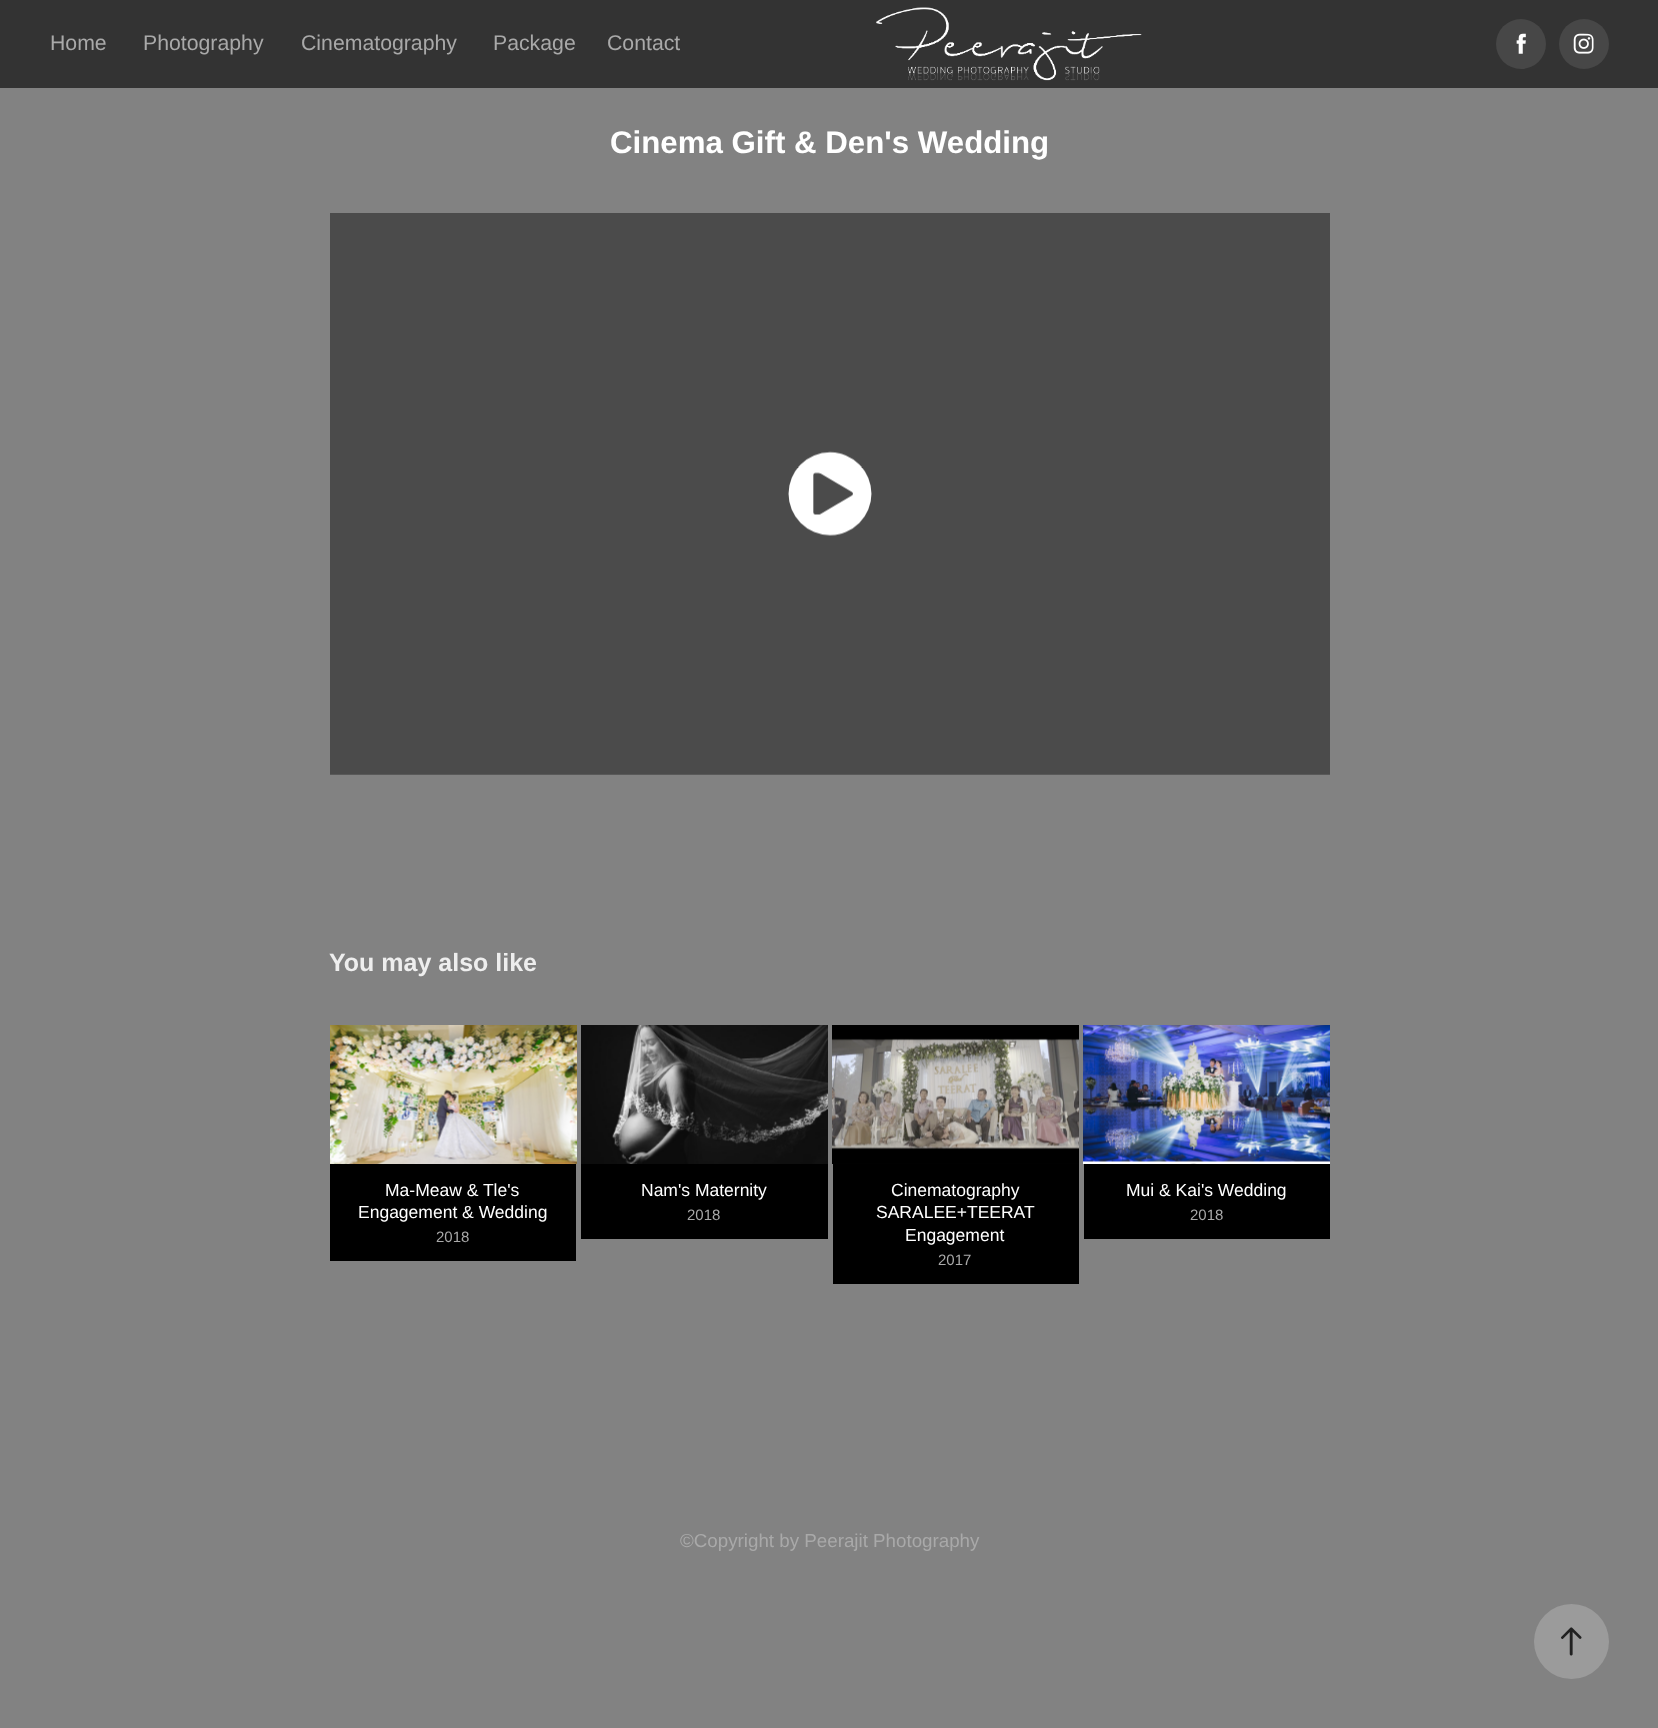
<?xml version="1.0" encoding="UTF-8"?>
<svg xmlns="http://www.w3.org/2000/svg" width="1658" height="1728">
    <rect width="100%" height="100%" fill="#828282"/>
    <rect x="0" y="0" width="1658" height="88" fill="#333333"/>
    <text x="50" y="50" font-family="Liberation Sans" font-size="21.25" fill="#A9A9A9">Home</text>
    <text x="143" y="50" font-family="Liberation Sans" font-size="21.25" fill="#A9A9A9">Photography</text>
    <text x="301" y="50" font-family="Liberation Sans" font-size="21.25" fill="#A9A9A9">Cinematography</text>
    <text x="493" y="50" font-family="Liberation Sans" font-size="21.25" fill="#A9A9A9">Package</text>
    <text x="607" y="50" font-family="Liberation Sans" font-size="21.25" fill="#A9A9A9">Contact</text>
    <image x="876" y="7" width="266" height="74" href="img_01.png"/>
    <circle cx="1521" cy="44" r="25" fill="#474747"/>
    <image x="1516" y="33" width="10" height="21" href="img_02.png"/>
    <circle cx="1584" cy="44" r="25" fill="#474747"/>
    <image x="1573" y="33" width="21" height="21" href="img_03.png"/>
    <text x="610" y="153" font-family="Liberation Sans" font-size="31.25" font-weight="700" fill="#FFFFFF">Cinema Gift &amp; Den's Wedding</text>
    <image x="330" y="213" width="1000" height="562" href="img_04.png"/>
    <text x="329" y="971" font-family="Liberation Sans" font-size="25" font-weight="700" fill="#EEEEEE">You may also like</text>
    <image x="330" y="1025" width="247" height="139" href="img_05.png"/>
    <rect x="330" y="1164" width="246" height="97" fill="#000000"/>
    <text x="385" y="1196" font-family="Liberation Sans" font-size="17.5" fill="#FFFFFF">Ma-Meaw &amp; Tle's</text>
    <text x="358" y="1218" font-family="Liberation Sans" font-size="17.5" fill="#FFFFFF">Engagement &amp; Wedding</text>
    <text x="436" y="1242" font-family="Liberation Sans" font-size="15" fill="#A9A9A9">2018</text>
    <image x="581" y="1025" width="247" height="139" href="img_06.png"/>
    <rect x="581" y="1164" width="247" height="75" fill="#000000"/>
    <text x="641" y="1196" font-family="Liberation Sans" font-size="17.5" fill="#FFFFFF">Nam's Maternity</text>
    <text x="687" y="1220" font-family="Liberation Sans" font-size="15" fill="#A9A9A9">2018</text>
    <image x="832" y="1025" width="247" height="139" href="img_07.png"/>
    <rect x="833" y="1164" width="246" height="120" fill="#000000"/>
    <text x="891" y="1196" font-family="Liberation Sans" font-size="17.5" fill="#FFFFFF">Cinematography</text>
    <text x="876" y="1218" font-family="Liberation Sans" font-size="17.5" fill="#FFFFFF">SARALEE+TEERAT</text>
    <text x="905" y="1241" font-family="Liberation Sans" font-size="17.5" fill="#FFFFFF">Engagement</text>
    <text x="938" y="1265" font-family="Liberation Sans" font-size="15" fill="#A9A9A9">2017</text>
    <image x="1083" y="1025" width="247" height="139" href="img_08.png"/>
    <rect x="1084" y="1164" width="246" height="75" fill="#000000"/>
    <text x="1126" y="1196" font-family="Liberation Sans" font-size="17.5" fill="#FFFFFF">Mui &amp; Kai's Wedding</text>
    <text x="1190" y="1220" font-family="Liberation Sans" font-size="15" fill="#A9A9A9">2018</text>
    <circle cx="1571.5" cy="1641.5" r="37.5" fill="#9B9B9B"/>
    <image x="1561" y="1627" width="21" height="29" href="img_09.png"/>
    <text x="680" y="1547" font-family="Liberation Sans" font-size="18.75" fill="#A9A9A9">©Copyright by Peerajit Photography</text>
</svg>
